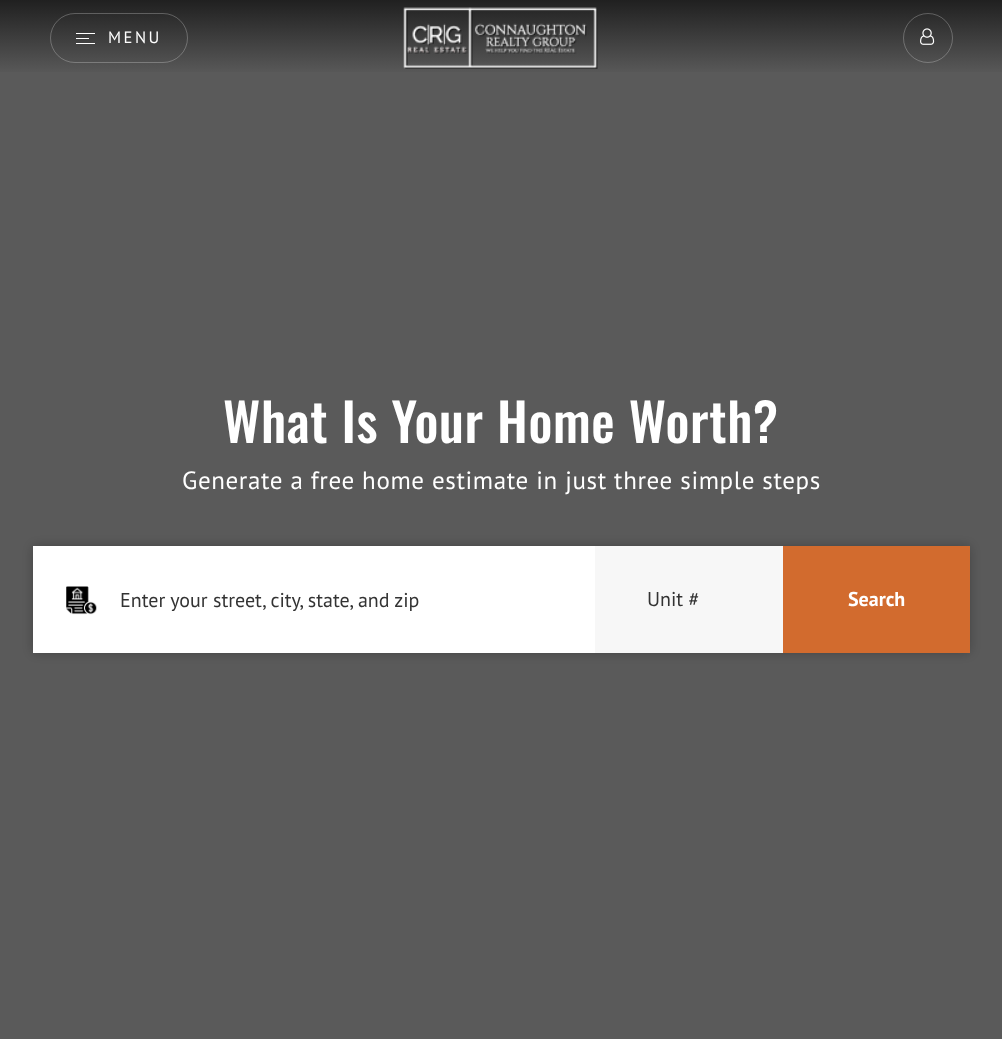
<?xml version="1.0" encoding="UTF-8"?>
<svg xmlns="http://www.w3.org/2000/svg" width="1002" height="1039">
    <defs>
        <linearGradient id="g1" gradientUnits="userSpaceOnUse" x1="501" y1="0" x2="501" y2="75"><stop offset="0" stop-color="#202020"/><stop offset="1" stop-color="#5A5A5A"/></linearGradient>
        <filter id="blur1" x="-50%" y="-200%" width="200%" height="500%"><feGaussianBlur stdDeviation="6"/></filter>
    </defs>
    <rect width="100%" height="100%" fill="#5A5A5A"/>
    <rect x="0" y="0" width="1002" height="72" fill="url(#g1)"/>
    <rect x="50.5" y="13.5" width="137" height="49" rx="24.5" fill="none" stroke="#FFFFFF" stroke-opacity="0.25"/>
    <rect x="76" y="33" width="19" height="1" fill="#FFFFFF"/>
    <rect x="76" y="38" width="13" height="1" fill="#FFFFFF"/>
    <rect x="76" y="43" width="19" height="1" fill="#FFFFFF"/>
    <text x="108" y="43" font-family="PT Sans" font-size="16.5" letter-spacing="2.5" fill="#FFFFFF">MENU</text>
    <image x="403" y="7" width="195" height="62" href="img_01.png"/>
    <circle cx="928" cy="38" r="24.5" fill="none" stroke="#FFFFFF" stroke-opacity="0.25"/>
    <image x="920" y="28" width="15" height="17" href="img_02.png"/>
    <text x="223" y="443" font-family="Oswald" font-size="52.5" font-weight="500" letter-spacing="0.62" fill="#FFFFFF">What Is Your Home Worth?</text>
    <text x="182" y="489" font-family="PT Sans" font-size="25" letter-spacing="0.62" fill="#FFFFFF">Generate a free home estimate in just three simple steps</text>
    <rect x="33" y="546" width="937" height="107" fill="#000000" fill-opacity="0.25" filter="url(#blur1)"/>
    <rect x="33" y="546" width="562" height="107" fill="#FFFFFF"/>
    <image x="66" y="586" width="31" height="29" href="img_03.png"/>
    <text x="120" y="607" font-family="PT Sans" font-size="20" fill="#333333">Enter your street, city, state, and zip</text>
    <rect x="595" y="546" width="188" height="107" fill="#F7F7F7"/>
    <text x="647" y="606" font-family="PT Sans" font-size="20" fill="#333333">Unit #</text>
    <rect x="783" y="546" width="187" height="107" fill="#D26B2E"/>
    <text x="848" y="606" font-family="PT Sans" font-size="20" font-weight="700" fill="#FFFFFF">Search</text>
</svg>
